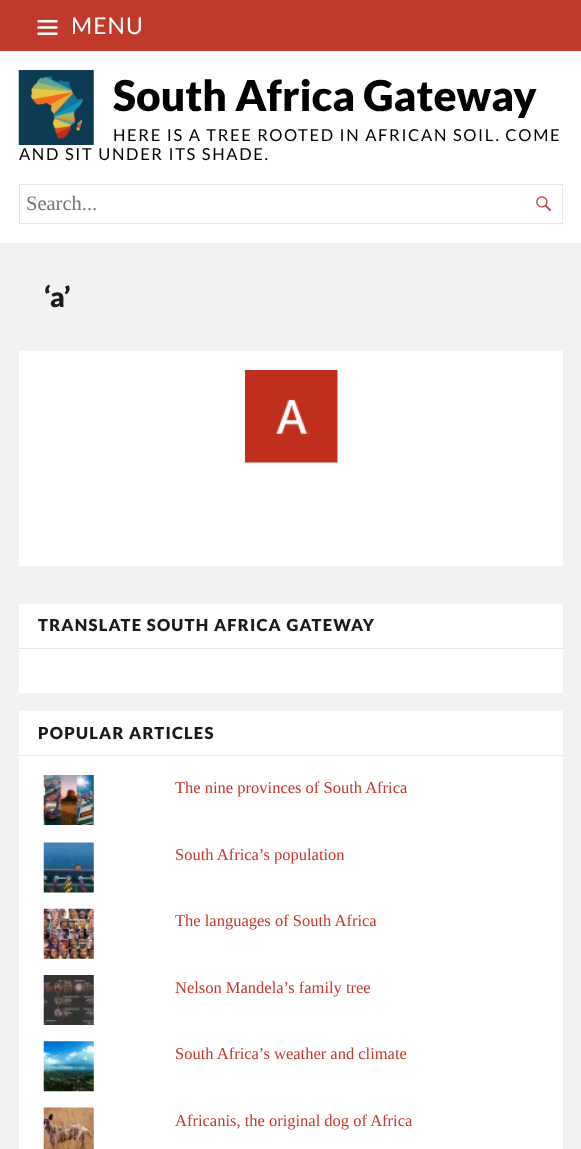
<?xml version="1.0" encoding="UTF-8"?>
<svg xmlns="http://www.w3.org/2000/svg" width="581" height="1149">
    <rect width="100%" height="100%" fill="#F2F2F2"/>
    <rect x="0" y="0" width="581" height="51" fill="#C0392B"/>
    <image x="37" y="20" width="21" height="15" href="img_01.png"/>
    <text x="71" y="34" font-family="Lato" font-size="23" letter-spacing="1" fill="#FFFFFF">MENU</text>
    <rect x="0" y="51" width="581" height="192" fill="#FFFFFF"/>
    <image x="18" y="70" width="76" height="75" href="img_02.png"/>
    <text x="113" y="111" font-family="Lato" font-size="42.5" font-weight="900" fill="#000000">South Africa Gateway</text>
    <text x="113" y="141" font-family="Lato" font-size="16.5" letter-spacing="1.65" fill="#000000">HERE IS A TREE ROOTED IN AFRICAN SOIL. COME</text>
    <text x="19" y="160" font-family="Lato" font-size="16.5" letter-spacing="1.65" fill="#000000">AND SIT UNDER ITS SHADE.</text>
    <rect x="19.5" y="184.5" width="543" height="39" fill="none" stroke="#E6E6E6"/>
    <text x="26" y="210" font-family="Liberation Serif" font-size="20.5" fill="#757575">Search...</text>
    <image x="536" y="196" width="16" height="16" href="img_03.png"/>
    <text x="44" y="307" font-family="Lato" font-size="28" font-weight="900" fill="#1A1A1A">‘a’</text>
    <rect x="19" y="351" width="544" height="215" fill="#FFFFFF"/>
    <image x="245" y="370" width="93" height="93" href="img_04.png"/>
    <rect x="19" y="604" width="544" height="89" fill="#FFFFFF"/>
    <rect x="19" y="648" width="544" height="1" fill="#E6E6E6"/>
    <text x="38" y="631" font-family="Lato" font-size="16.5" font-weight="900" letter-spacing="1.25" fill="#1A1A1A">TRANSLATE SOUTH AFRICA GATEWAY</text>
    <rect x="19" y="711" width="544" height="438" fill="#FFFFFF"/>
    <rect x="19" y="755" width="544" height="1" fill="#E6E6E6"/>
    <text x="38" y="739" font-family="Lato" font-size="16.5" font-weight="900" letter-spacing="1.25" fill="#1A1A1A">POPULAR ARTICLES</text>
    <image x="43" y="775" width="51" height="50" href="img_05.png"/>
    <text x="175" y="793" font-family="Liberation Serif" font-size="16.5" fill="#C0392B">The nine provinces of South Africa</text>
    <image x="43" y="842" width="51" height="51" href="img_06.png"/>
    <text x="175" y="860" font-family="Liberation Serif" font-size="16.5" fill="#C0392B">South Africa’s population</text>
    <image x="43" y="908" width="51" height="51" href="img_07.png"/>
    <text x="175" y="926" font-family="Liberation Serif" font-size="16.5" fill="#C0392B">The languages of South Africa</text>
    <image x="43" y="975" width="51" height="50" href="img_08.png"/>
    <text x="175" y="993" font-family="Liberation Serif" font-size="16.5" fill="#C0392B">Nelson Mandela’s family tree</text>
    <image x="43" y="1041" width="51" height="51" href="img_09.png"/>
    <text x="175" y="1059" font-family="Liberation Serif" font-size="16.5" fill="#C0392B">South Africa’s weather and climate</text>
    <image x="43" y="1107" width="51" height="42" href="img_10.png"/>
    <text x="175" y="1126" font-family="Liberation Serif" font-size="16.5" fill="#C0392B">Africanis, the original dog of Africa</text>
</svg>
